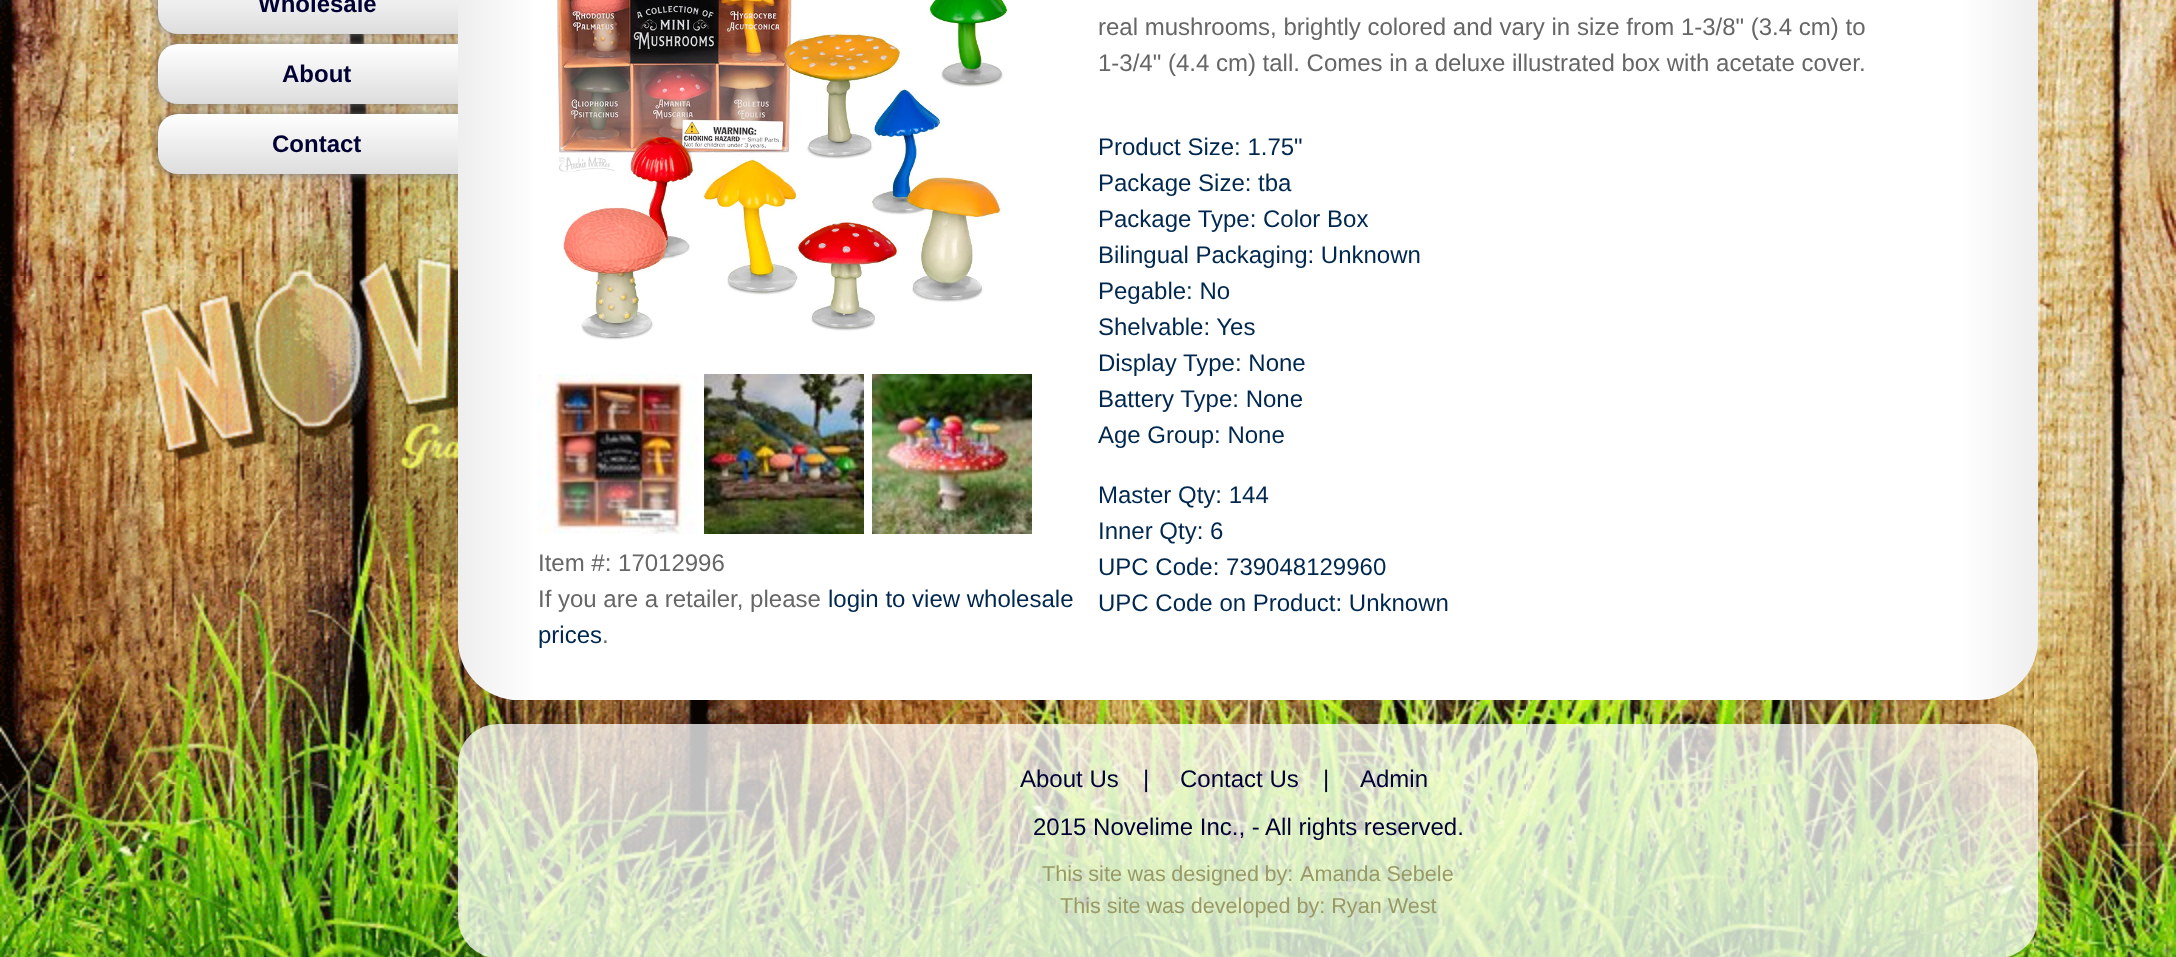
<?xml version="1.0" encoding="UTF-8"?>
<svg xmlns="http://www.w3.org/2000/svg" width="2176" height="957">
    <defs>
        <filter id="blur1" x="-50%" y="-200%" width="200%" height="500%"><feGaussianBlur stdDeviation="5"/></filter>
        <linearGradient id="g1" gradientUnits="userSpaceOnUse" x1="158" y1="-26" x2="158" y2="34"><stop offset="0" stop-color="#FFFFFF"/><stop offset="1" stop-color="#DDDDDD"/></linearGradient>
        <linearGradient id="g2" gradientUnits="userSpaceOnUse" x1="158" y1="44" x2="158" y2="104"><stop offset="0" stop-color="#FFFFFF"/><stop offset="1" stop-color="#DDDDDD"/></linearGradient>
        <linearGradient id="g3" gradientUnits="userSpaceOnUse" x1="158" y1="114" x2="158" y2="174"><stop offset="0" stop-color="#FFFFFF"/><stop offset="1" stop-color="#DDDDDD"/></linearGradient>
        <linearGradient id="g4" gradientUnits="userSpaceOnUse" x1="458" y1="-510" x2="2038" y2="-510"><stop offset="0" stop-color="#EEEEEE"/><stop offset="0.05" stop-color="#FFFFFF"/><stop offset="0.95" stop-color="#FFFFFF"/><stop offset="1" stop-color="#EEEEEE"/></linearGradient>
    </defs>
    <rect width="100%" height="100%" fill="#FFFFFF"/>
    <image x="0" y="0" width="2176" height="957" href="img_01.png"/>
    <rect x="158" y="-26" width="320" height="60" rx="20" fill="#777777" filter="url(#blur1)"/>
    <rect x="158" y="-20" width="320" height="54" rx="20" fill="url(#g1)"/>
    <text x="258" y="12" font-family="Liberation Sans" font-size="24" font-weight="700" fill="#000033">Wholesale</text>
    <rect x="158" y="44" width="320" height="60" rx="20" fill="#777777" filter="url(#blur1)"/>
    <rect x="158" y="44" width="320" height="60" rx="20" fill="url(#g2)"/>
    <text x="282" y="82" font-family="Liberation Sans" font-size="24" font-weight="700" fill="#000033">About</text>
    <rect x="158" y="114" width="320" height="60" rx="20" fill="#777777" filter="url(#blur1)"/>
    <rect x="158" y="114" width="320" height="60" rx="20" fill="url(#g3)"/>
    <text x="272" y="152" font-family="Liberation Sans" font-size="24" font-weight="700" fill="#000033">Contact</text>
    <path d="M 458 -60 H 2038 V 640 C 2038 673 2011 700 1978 700 H 518 C 485 700 458 673 458 640 Z" fill="url(#g4)"/>
    <image x="555" y="0" width="454" height="340" href="img_02.png"/>
    <image x="538" y="374" width="160" height="160" href="img_03.png"/>
    <image x="704" y="374" width="160" height="160" href="img_04.png"/>
    <image x="872" y="374" width="160" height="160" href="img_05.png"/>
    <text font-family="Liberation Sans" font-size="24" fill="#666666">
        <tspan x="538" y="571">Item #: 17012996</tspan>
        <tspan x="538" y="607">If you are a retailer, please</tspan>
    </text>
    <text x="828" y="607" font-family="Liberation Sans" font-size="24" fill="#00274E">login to view wholesale</text>
    <text x="538" y="643" font-family="Liberation Sans" font-size="24" fill="#00274E">prices</text>
    <text x="602" y="643" font-family="Liberation Sans" font-size="24" fill="#666666">.</text>
    <text font-family="Liberation Sans" font-size="24" fill="#666666">
        <tspan x="1098" y="35">real mushrooms, brightly colored and vary in size from 1-3/8" (3.4 cm) to</tspan>
        <tspan x="1098" y="71">1-3/4" (4.4 cm) tall. Comes in a deluxe illustrated box with acetate cover.</tspan>
    </text>
    <text font-family="Liberation Sans" font-size="24" fill="#00274E">
        <tspan x="1098" y="155">Product Size: 1.75"</tspan>
        <tspan x="1098" y="191">Package Size: tba</tspan>
        <tspan x="1098" y="227">Package Type: Color Box</tspan>
        <tspan x="1098" y="263">Bilingual Packaging: Unknown</tspan>
        <tspan x="1098" y="299">Pegable: No</tspan>
        <tspan x="1098" y="335">Shelvable: Yes</tspan>
        <tspan x="1098" y="371">Display Type: None</tspan>
        <tspan x="1098" y="407">Battery Type: None</tspan>
        <tspan x="1098" y="443">Age Group: None</tspan>
    </text>
    <text font-family="Liberation Sans" font-size="24" fill="#00274E">
        <tspan x="1098" y="503">Master Qty: 144</tspan>
        <tspan x="1098" y="539">Inner Qty: 6</tspan>
        <tspan x="1098" y="575">UPC Code: 739048129960</tspan>
        <tspan x="1098" y="611">UPC Code on Product: Unknown</tspan>
    </text>
    <rect x="458" y="724" width="1580" height="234" rx="40" fill="#FFFFFF" fill-opacity="0.75"/>
    <text x="1020" y="787" font-family="Liberation Sans" font-size="24" fill="#000033">About Us</text>
    <text x="1143" y="787" font-family="Liberation Sans" font-size="24" fill="#000033">|</text>
    <text x="1180" y="787" font-family="Liberation Sans" font-size="24" fill="#000033">Contact Us</text>
    <text x="1323" y="787" font-family="Liberation Sans" font-size="24" fill="#000033">|</text>
    <text x="1360" y="787" font-family="Liberation Sans" font-size="24" fill="#000033">Admin</text>
    <text x="1033" y="835" font-family="Liberation Sans" font-size="24" fill="#000033">2015 Novelime Inc., - All rights reserved.</text>
    <text x="1042" y="881" word-spacing="-0.5" font-family="Liberation Sans" font-size="21.6" fill="#999966">This site was designed by:</text>
    <text x="1300" y="881" font-family="Liberation Sans" font-size="21.6" fill="#999966">Amanda Sebele</text>
    <text x="1060" y="913" font-family="Liberation Sans" font-size="21.6" fill="#999966">This site was developed by: Ryan West</text>
</svg>
